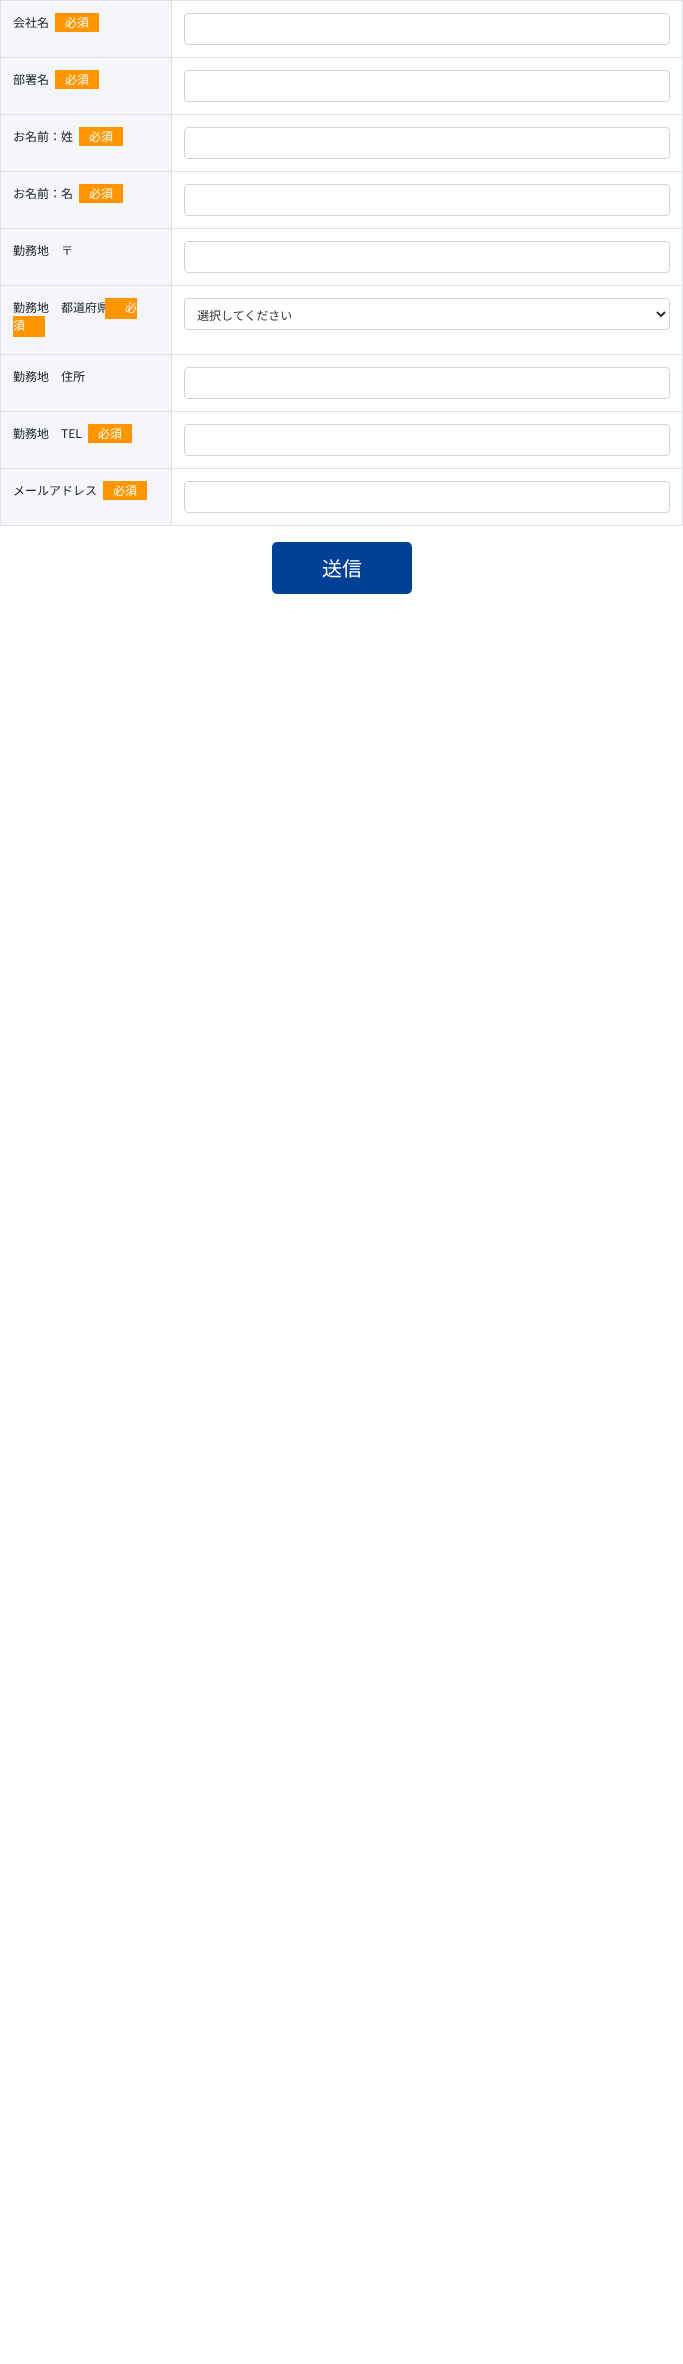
<?xml version="1.0" encoding="UTF-8"?>
<svg xmlns="http://www.w3.org/2000/svg" width="683" height="2364">
    <rect width="100%" height="100%" fill="#FFFFFF"/>
    <rect x="0" y="0" width="683" height="1" fill="#DEE2E6"/>
    <rect x="682" y="0" width="1" height="526" fill="#DEE2E6"/>
    <rect x="0" y="525" width="683" height="1" fill="#DEE2E6"/>
    <rect x="0" y="0" width="1" height="526" fill="#DEE2E6"/>
    <rect x="1" y="1" width="170" height="56" fill="#F4F6FA"/>
    <text x="13" y="27" font-family="Noto Sans JP" font-size="12" fill="#212529">会社名</text>
    <rect x="55" y="13" width="44" height="19" fill="#FF9600"/>
    <text x="65" y="27" font-family="Noto Sans JP" font-size="12" fill="#FFFFFF">必須</text>
    <rect x="171" y="57" width="512" height="1" fill="#DEE2E6"/>
    <rect x="171" y="114" width="512" height="1" fill="#DEE2E6"/>
    <rect x="171" y="171" width="512" height="1" fill="#DEE2E6"/>
    <rect x="171" y="228" width="512" height="1" fill="#DEE2E6"/>
    <rect x="171" y="285" width="512" height="1" fill="#DEE2E6"/>
    <rect x="171" y="354" width="512" height="1" fill="#DEE2E6"/>
    <rect x="171" y="411" width="512" height="1" fill="#DEE2E6"/>
    <rect x="171" y="468" width="512" height="1" fill="#DEE2E6"/>
    <rect x="171" y="468" width="1" height="58" fill="#DEE2E6"/>
    <rect x="0" y="468" width="172" height="1" fill="#DEE2E6"/>
    <rect x="171" y="411" width="1" height="58" fill="#DEE2E6"/>
    <rect x="0" y="411" width="172" height="1" fill="#DEE2E6"/>
    <rect x="171" y="354" width="1" height="58" fill="#DEE2E6"/>
    <rect x="0" y="354" width="172" height="1" fill="#DEE2E6"/>
    <rect x="171" y="285" width="1" height="70" fill="#DEE2E6"/>
    <rect x="0" y="285" width="172" height="1" fill="#DEE2E6"/>
    <rect x="171" y="228" width="1" height="58" fill="#DEE2E6"/>
    <rect x="0" y="228" width="172" height="1" fill="#DEE2E6"/>
    <rect x="171" y="171" width="1" height="58" fill="#DEE2E6"/>
    <rect x="0" y="171" width="172" height="1" fill="#DEE2E6"/>
    <rect x="171" y="114" width="1" height="58" fill="#DEE2E6"/>
    <rect x="0" y="114" width="172" height="1" fill="#DEE2E6"/>
    <rect x="171" y="57" width="1" height="58" fill="#DEE2E6"/>
    <rect x="0" y="57" width="172" height="1" fill="#DEE2E6"/>
    <rect x="171" y="0" width="1" height="58" fill="#DEE2E6"/>
    <rect x="184.5" y="13.5" width="485" height="31" rx="3.5" fill="none" stroke="#CED4DA"/>
    <rect x="1" y="58" width="170" height="56" fill="#F4F6FA"/>
    <text x="13" y="84" font-family="Noto Sans JP" font-size="12" fill="#212529">部署名</text>
    <rect x="55" y="70" width="44" height="19" fill="#FF9600"/>
    <text x="65" y="84" font-family="Noto Sans JP" font-size="12" fill="#FFFFFF">必須</text>
    <rect x="184.5" y="70.5" width="485" height="31" rx="3.5" fill="none" stroke="#CED4DA"/>
    <rect x="1" y="115" width="170" height="56" fill="#F4F6FA"/>
    <text x="13" y="141" font-family="Noto Sans JP" font-size="12" fill="#212529">お名前：姓</text>
    <rect x="79" y="127" width="44" height="19" fill="#FF9600"/>
    <text x="89" y="141" font-family="Noto Sans JP" font-size="12" fill="#FFFFFF">必須</text>
    <rect x="184.5" y="127.5" width="485" height="31" rx="3.5" fill="none" stroke="#CED4DA"/>
    <rect x="1" y="172" width="170" height="56" fill="#F4F6FA"/>
    <text x="13" y="198" font-family="Noto Sans JP" font-size="12" fill="#212529">お名前：名</text>
    <rect x="79" y="184" width="44" height="19" fill="#FF9600"/>
    <text x="89" y="198" font-family="Noto Sans JP" font-size="12" fill="#FFFFFF">必須</text>
    <rect x="184.5" y="184.5" width="485" height="31" rx="3.5" fill="none" stroke="#CED4DA"/>
    <rect x="1" y="229" width="170" height="56" fill="#F4F6FA"/>
    <text x="13" y="255" font-family="Noto Sans JP" font-size="12" fill="#212529">勤務地　〒</text>
    <rect x="184.5" y="241.5" width="485" height="31" rx="3.5" fill="none" stroke="#CED4DA"/>
    <rect x="1" y="286" width="170" height="68" fill="#F4F6FA"/>
    <text x="13" y="312" font-family="Noto Sans JP" font-size="12" fill="#212529">勤務地　都道府県</text>
    <rect x="105" y="298" width="32" height="21" fill="#FF9600"/>
    <text x="125" y="312" font-family="Noto Sans JP" font-size="12" fill="#FFFFFF">必</text>
    <rect x="13" y="316" width="32" height="21" fill="#FF9600"/>
    <text x="13" y="330" font-family="Noto Sans JP" font-size="12" fill="#FFFFFF">須</text>
    <rect x="184.5" y="298.5" width="485" height="31" rx="3.5" fill="none" stroke="#CED4DA"/>
    <path d="M 657 312 L 661 316 L 665 312" fill="none" stroke="#333333" stroke-width="2"/>
    <text x="197" y="320" font-family="Noto Sans JP" font-size="12" fill="#333333">選択してください</text>
    <rect x="1" y="355" width="170" height="56" fill="#F4F6FA"/>
    <text x="13" y="381" font-family="Noto Sans JP" font-size="12" fill="#212529">勤務地　住所</text>
    <rect x="184.5" y="367.5" width="485" height="31" rx="3.5" fill="none" stroke="#CED4DA"/>
    <rect x="1" y="412" width="170" height="56" fill="#F4F6FA"/>
    <text x="13" y="438" font-family="Noto Sans JP" font-size="12" fill="#212529">勤務地　TEL</text>
    <rect x="88" y="424" width="44" height="19" fill="#FF9600"/>
    <text x="98" y="438" font-family="Noto Sans JP" font-size="12" fill="#FFFFFF">必須</text>
    <rect x="184.5" y="424.5" width="485" height="31" rx="3.5" fill="none" stroke="#CED4DA"/>
    <rect x="1" y="469" width="170" height="56" fill="#F4F6FA"/>
    <text x="13" y="495" font-family="Noto Sans JP" font-size="12" fill="#212529">メールアドレス</text>
    <rect x="103" y="481" width="44" height="19" fill="#FF9600"/>
    <text x="113" y="495" font-family="Noto Sans JP" font-size="12" fill="#FFFFFF">必須</text>
    <rect x="184.5" y="481.5" width="485" height="31" rx="3.5" fill="none" stroke="#CED4DA"/>
    <rect x="272" y="542" width="140" height="52" rx="5" fill="#004196"/>
    <text x="322" y="576" font-family="Noto Sans JP" font-size="20" fill="#FFFFFF">送信</text>
</svg>
